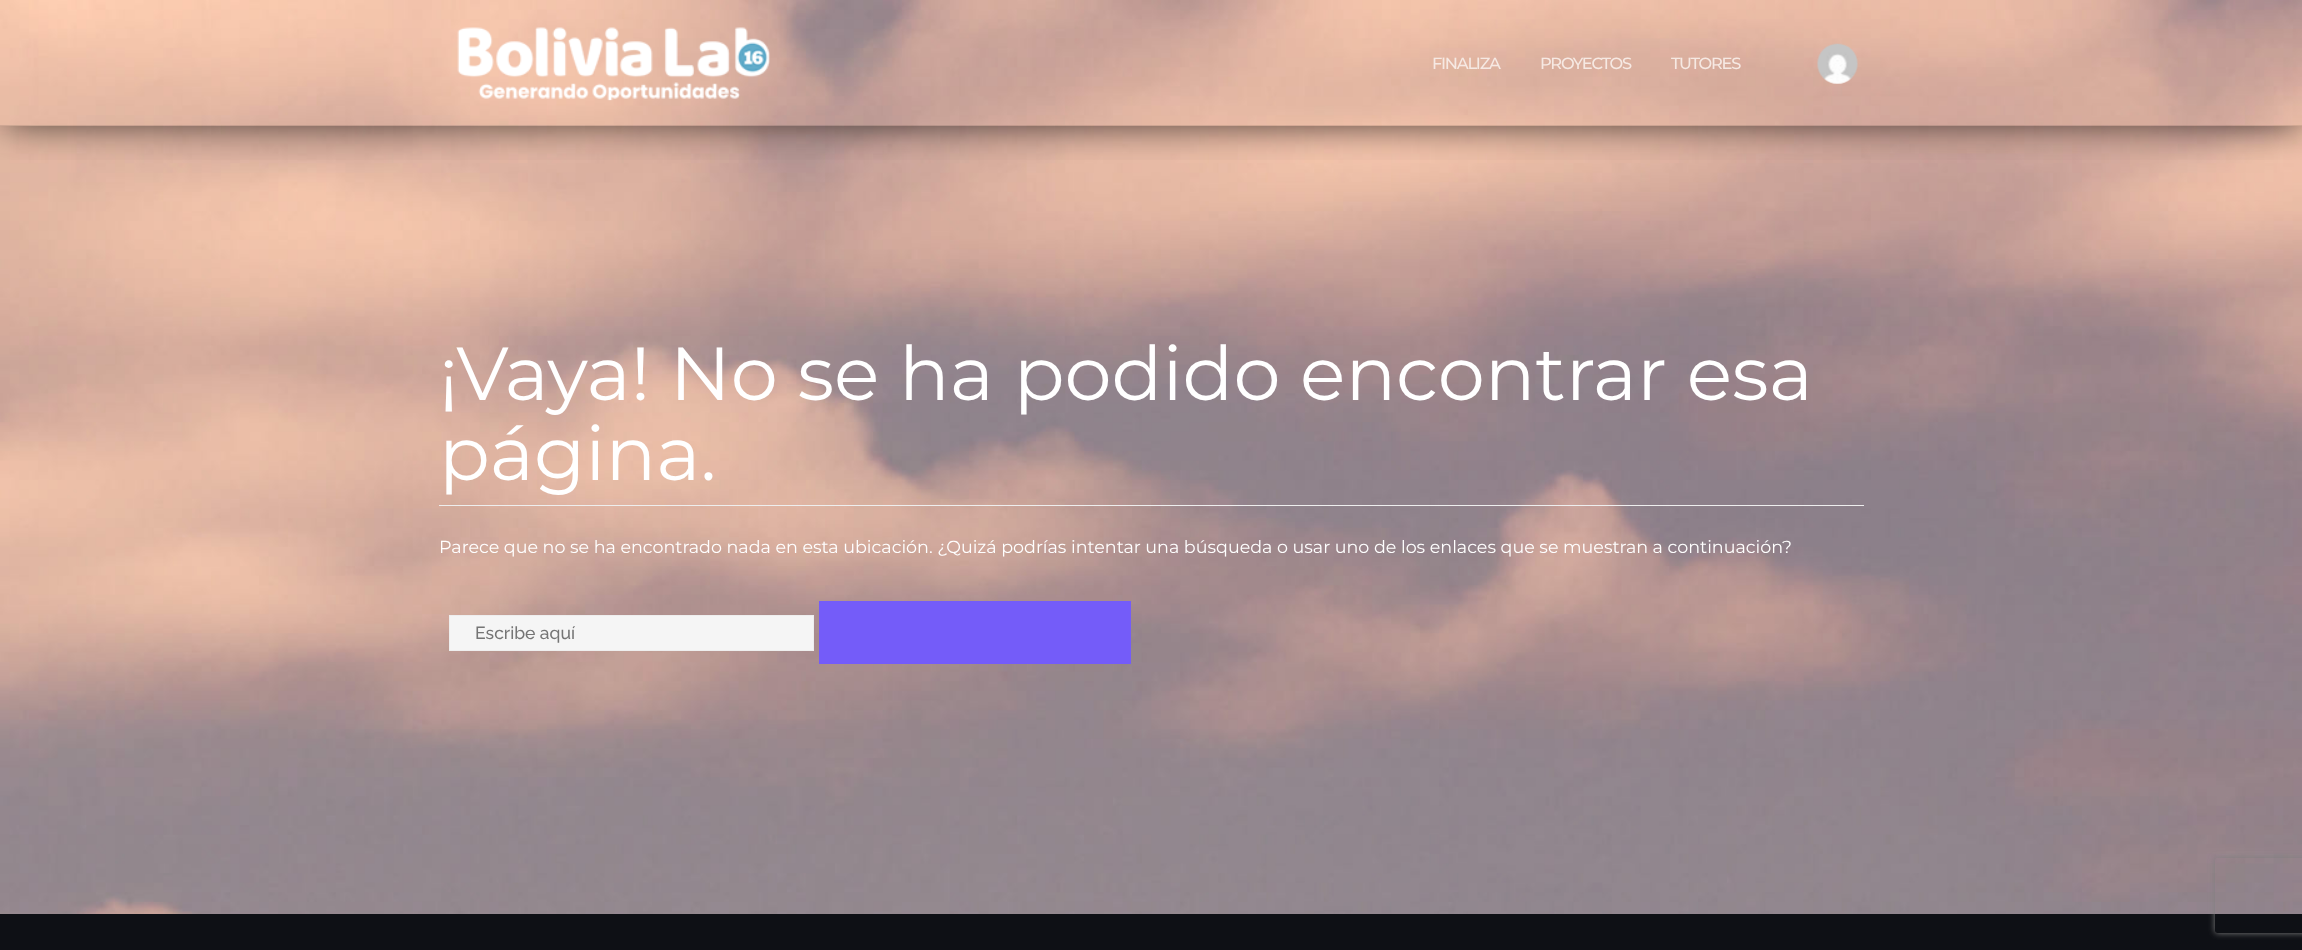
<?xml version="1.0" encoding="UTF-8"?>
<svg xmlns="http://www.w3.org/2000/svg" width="2302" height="950">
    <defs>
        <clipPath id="clip1"><rect x="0" y="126" width="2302" height="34"/></clipPath>
        <filter id="blur1" x="-50%" y="-200%" width="200%" height="500%"><feGaussianBlur stdDeviation="19"/></filter>
        <clipPath id="clip2"><path d="M 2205 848 H 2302 V 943 H 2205 Z M 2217.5 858 H 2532.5 C 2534 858 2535 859 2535 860.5 V 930.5 C 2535 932 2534 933 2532.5 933 H 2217.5 C 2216 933 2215 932 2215 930.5 V 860.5 C 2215 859 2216 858 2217.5 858 Z" clip-rule="evenodd"/></clipPath>
        <filter id="blur2" x="-50%" y="-200%" width="200%" height="500%"><feGaussianBlur stdDeviation="3"/></filter>
    </defs>
    <rect width="100%" height="100%" fill="#FFFFFF"/>
    <image x="0" y="0" width="2302" height="914" href="img_01.png"/>
    <g clip-path="url(#clip1)">
        <rect x="4" y="4" width="2295" height="119" fill="#000000" fill-opacity="0.75" filter="url(#blur1)"/>
    </g>
    <rect x="0" y="125" width="2302" height="1" fill="#000000" fill-opacity="0.1"/>
    <image x="457" y="27" width="313" height="74" href="img_02.png"/>
    <text x="1432" y="69" font-family="Montserrat" font-size="16.25" font-weight="500" letter-spacing="-1.25" fill="#F6E9E3">FINALIZA</text>
    <text x="1540" y="69" font-family="Montserrat" font-size="16.25" font-weight="500" letter-spacing="-1.25" fill="#F6E9E3">PROYECTOS</text>
    <text x="1671" y="69" font-family="Montserrat" font-size="16.25" font-weight="500" letter-spacing="-1.25" fill="#F6E9E3">TUTORES</text>
    <image x="1817" y="43" width="41" height="41" href="img_03.png"/>
    <rect x="439" y="505" width="1425" height="1" fill="#EEEEEE"/>
    <text font-family="Montserrat" font-size="75" fill="#FFFFFF">
        <tspan x="439" y="400">¡Vaya! No se ha podido encontrar esa</tspan>
        <tspan x="439" y="480">página.</tspan>
    </text>
    <text x="439" y="553" font-family="Montserrat" font-size="17.5" fill="#FFFFFF">Parece que no se ha encontrado nada en esta ubicación. ¿Quizá podrías intentar una búsqueda o usar uno de los enlaces que se muestran a continuación?</text>
    <rect x="449.5" y="615.5" width="364" height="35" fill="#F5F5F5" stroke="#EEEEEE"/>
    <text x="475" y="639" font-family="Raleway" font-size="17.5" font-weight="500" fill="#757575">Escribe aquí</text>
    <rect x="819" y="601" width="312" height="63" fill="#745CF9"/>
    <rect x="0" y="914" width="2302" height="36" fill="#0E1015"/>
    <g clip-path="url(#clip2)">
        <rect x="2215" y="858" width="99" height="75" rx="2.5" fill="#808080" filter="url(#blur2)"/>
    </g>
</svg>
